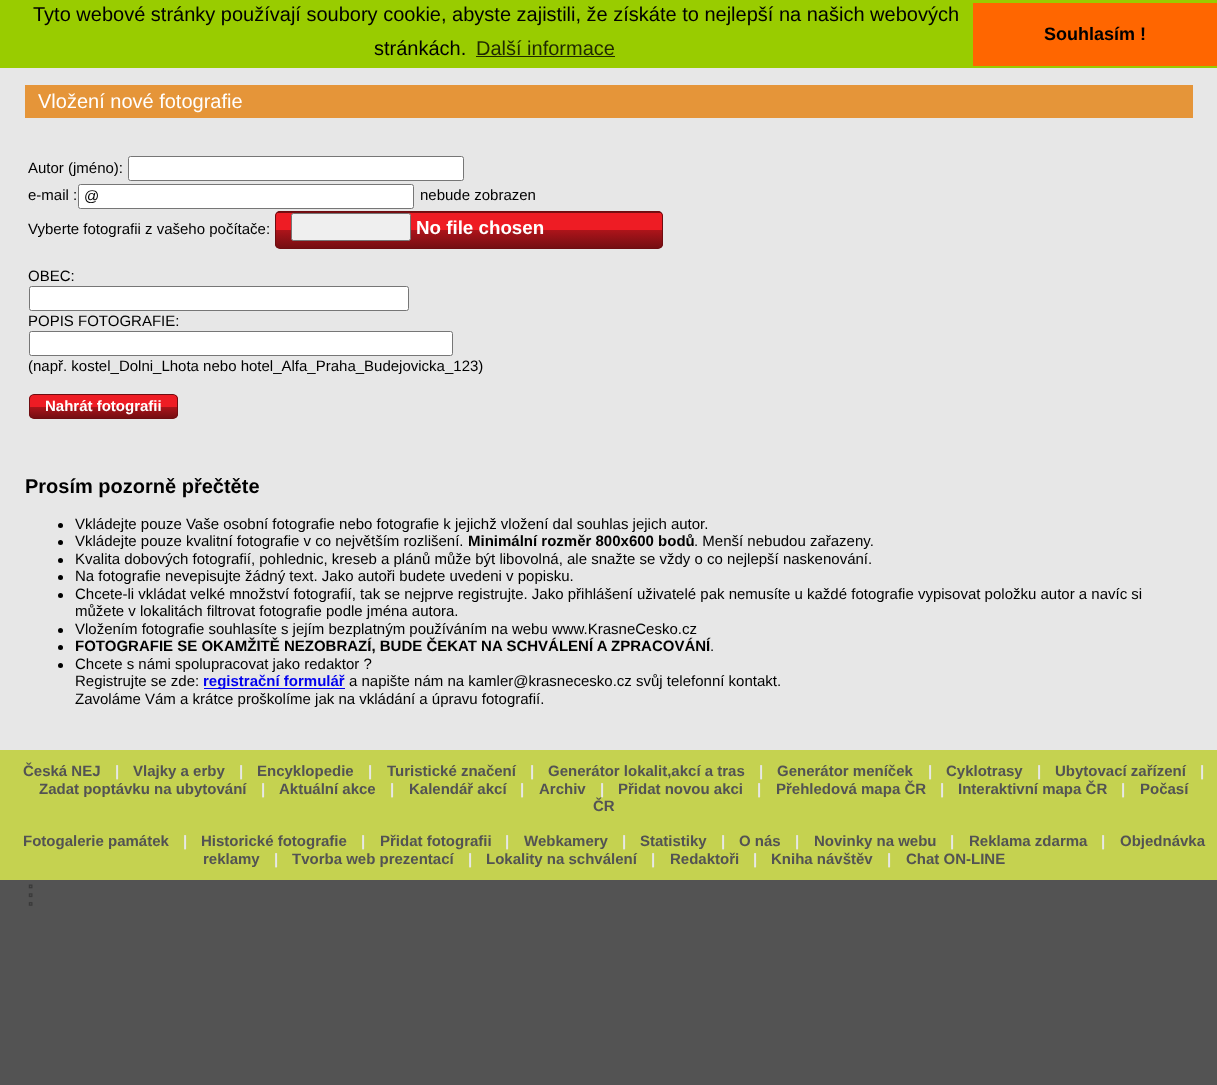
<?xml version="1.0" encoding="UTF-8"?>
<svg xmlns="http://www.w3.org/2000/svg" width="1217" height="1085">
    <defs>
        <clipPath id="clip1"><rect x="275" y="211" width="388" height="38" rx="5"/></clipPath>
        <linearGradient id="g1" gradientUnits="userSpaceOnUse" x1="469" y1="177" x2="469" y2="213"><stop offset="0" stop-color="#EE1C24"/><stop offset="0.5" stop-color="#EE1C24"/><stop offset="0.51" stop-color="#AC141A"/><stop offset="1" stop-color="#750E12"/></linearGradient>
        <linearGradient id="g2" gradientUnits="userSpaceOnUse" x1="469" y1="212" x2="469" y2="248"><stop offset="0" stop-color="#EE1C24"/><stop offset="0.5" stop-color="#EE1C24"/><stop offset="0.51" stop-color="#AC141A"/><stop offset="1" stop-color="#750E12"/></linearGradient>
        <clipPath id="clip2"><rect x="29" y="394" width="149" height="25" rx="5"/></clipPath>
        <linearGradient id="g3" gradientUnits="userSpaceOnUse" x1="103" y1="395" x2="103" y2="418"><stop offset="0" stop-color="#EE1C24"/><stop offset="0.5" stop-color="#EE1C24"/><stop offset="0.51" stop-color="#AC141A"/><stop offset="1" stop-color="#750E12"/></linearGradient>
    </defs>
    <rect width="100%" height="100%" fill="#E7E7E7"/>
    <rect x="0" y="0" width="1217" height="68" fill="#99CC00"/>
    <text x="33" y="21" font-family="Liberation Sans" font-size="20" fill="#000000">Tyto webové stránky používají soubory cookie, abyste zajistili, že získáte to nejlepší na našich webových</text>
    <text x="374" y="55" font-family="Liberation Sans" font-size="20" fill="#000000">stránkách.</text>
    <text x="476" y="55" font-family="Liberation Sans" font-size="20" fill="#1F2900">Další informace</text>
    <rect x="476" y="56" width="139" height="1" fill="#1F2900"/>
    <rect x="973" y="3" width="244" height="63" fill="#FF6600"/>
    <text x="1044" y="40" font-family="Liberation Sans" font-size="18" font-weight="700" fill="#000000">Souhlasím !</text>
    <rect x="25" y="85" width="1168" height="33" fill="#E59539"/>
    <text x="38" y="108" font-family="Liberation Sans" font-size="20" fill="#FFFFFF">Vložení nové fotografie</text>
    <text x="28" y="173" font-family="Liberation Sans" font-size="15" fill="#000000">Autor (jméno):</text>
    <rect x="128.5" y="156.5" width="335" height="24" rx="2" fill="#FFFFFF" stroke="#767676"/>
    <text x="28" y="200" font-family="Liberation Sans" font-size="15" fill="#000000">e-mail :</text>
    <rect x="78.5" y="184.5" width="335" height="24" rx="2" fill="#FFFFFF" stroke="#767676"/>
    <text x="84" y="201" font-family="Liberation Sans" font-size="15" fill="#000000">@</text>
    <text x="420" y="200" font-family="Liberation Sans" font-size="15" fill="#000000">nebude zobrazen</text>
    <text x="28" y="234" font-family="Liberation Sans" font-size="15" fill="#000000">Vyberte fotografii z vašeho počítače:</text>
    <g clip-path="url(#clip1)">
        <rect x="275" y="211" width="388" height="2" fill="url(#g1)"/>
        <rect x="275" y="213" width="388" height="35" fill="url(#g2)"/>
    </g>
    <rect x="275.5" y="211.5" width="387" height="37" rx="4.5" fill="none" stroke="#6E0D11"/>
    <rect x="291.5" y="213.5" width="119" height="27" rx="2" fill="#EFEFEF" stroke="#767676"/>
    <text x="416" y="234" font-family="Liberation Sans" font-size="18.75" font-weight="700" fill="#FFFFFF">No file chosen</text>
    <text x="28" y="281" font-family="Liberation Sans" font-size="15" fill="#000000">OBEC:</text>
    <rect x="29.5" y="286.5" width="379" height="24" rx="2" fill="#FFFFFF" stroke="#767676"/>
    <text x="28" y="326" font-family="Liberation Sans" font-size="15" fill="#000000">POPIS FOTOGRAFIE:</text>
    <rect x="29.5" y="331.5" width="423" height="24" rx="2" fill="#FFFFFF" stroke="#767676"/>
    <text x="28" y="371" font-family="Liberation Sans" font-size="15" fill="#000000">(např. kostel_Dolni_Lhota nebo hotel_Alfa_Praha_Budejovicka_123)</text>
    <g clip-path="url(#clip2)">
        <rect x="29" y="395" width="149" height="23" fill="url(#g3)"/>
    </g>
    <rect x="29.5" y="394.5" width="148" height="24" rx="4.5" fill="none" stroke="#6E0D11"/>
    <text x="45" y="411" font-family="Liberation Sans" font-size="15" font-weight="700" fill="#FFFFFF">Nahrát fotografii</text>
    <text x="25" y="493" font-family="Liberation Sans" font-size="20" font-weight="700" fill="#000000">Prosím pozorně přečtěte</text>
    <circle cx="60.5" cy="525.5" r="2.5" fill="#000000"/>
    <text x="75" y="529" font-family="Liberation Sans" font-size="15" fill="#000000">Vkládejte pouze Vaše osobní fotografie nebo fotografie k jejichž vložení dal souhlas jejich autor.</text>
    <circle cx="60.5" cy="542.5" r="2.5" fill="#000000"/>
    <text x="75" y="546" font-family="Liberation Sans" font-size="15" fill="#000000">Vkládejte pouze kvalitní fotografie v co největším rozlišení.</text>
    <text x="468" y="546" font-family="Liberation Sans" font-size="15" font-weight="700" fill="#000000">Minimální rozměr 800x600 bodů</text>
    <text x="694" y="546" font-family="Liberation Sans" font-size="15" fill="#000000">. Menší nebudou zařazeny.</text>
    <circle cx="60.5" cy="560.5" r="2.5" fill="#000000"/>
    <text x="75" y="564" font-family="Liberation Sans" font-size="15" fill="#000000">Kvalita dobových fotografií, pohlednic, kreseb a plánů může být libovolná, ale snažte se vždy o co nejlepší naskenování.</text>
    <circle cx="60.5" cy="577.5" r="2.5" fill="#000000"/>
    <text x="75" y="581" font-family="Liberation Sans" font-size="15" fill="#000000">Na fotografie nevepisujte žádný text. Jako autoři budete uvedeni v popisku.</text>
    <circle cx="60.5" cy="595.5" r="2.5" fill="#000000"/>
    <text font-family="Liberation Sans" font-size="15" fill="#000000">
        <tspan x="75" y="599">Chcete-li vkládat velké množství fotografií, tak se nejprve registrujte. Jako přihlášení uživatelé pak nemusíte u každé fotografie vypisovat položku autor a navíc si</tspan>
        <tspan x="75" y="616">můžete v lokalitách filtrovat fotografie podle jména autora.</tspan>
    </text>
    <circle cx="60.5" cy="630.5" r="2.5" fill="#000000"/>
    <text x="75" y="634" font-family="Liberation Sans" font-size="15" fill="#000000">Vložením fotografie souhlasíte s jejím bezplatným používáním na webu www.KrasneCesko.cz</text>
    <circle cx="60.5" cy="647.5" r="2.5" fill="#000000"/>
    <text x="75" y="651" font-family="Liberation Sans" font-size="15" font-weight="700" fill="#000000">FOTOGRAFIE SE OKAMŽITĚ NEZOBRAZÍ, BUDE ČEKAT NA SCHVÁLENÍ A ZPRACOVÁNÍ</text>
    <text x="710" y="651" font-family="Liberation Sans" font-size="15" fill="#000000">.</text>
    <circle cx="60.5" cy="665.5" r="2.5" fill="#000000"/>
    <text font-family="Liberation Sans" font-size="15" fill="#000000">
        <tspan x="75" y="669">Chcete s námi spolupracovat jako redaktor ?</tspan>
        <tspan x="75" y="686">Registrujte se zde:</tspan>
    </text>
    <rect x="204" y="688" width="141" height="1" fill="#0000EE"/>
    <text x="203" y="686" font-family="Liberation Sans" font-size="15" font-weight="700" fill="#0000EE">registrační formulář</text>
    <text x="349" y="686" font-family="Liberation Sans" font-size="15" fill="#000000">a napište nám na kamler@krasnecesko.cz svůj telefonní kontakt.</text>
    <text x="75" y="704" font-family="Liberation Sans" font-size="15" fill="#000000">Zavoláme Vám a krátce proškolíme jak na vkládání a úpravu fotografií.</text>
    <rect x="0" y="750" width="1217" height="130" fill="#C5D250"/>
    <text x="23" y="776" font-family="Liberation Sans" font-size="15" font-weight="700" fill="#535353">Česká NEJ</text>
    <text x="115" y="776" font-family="Liberation Sans" font-size="15" font-weight="700" fill="#E7E7E7">|</text>
    <text x="133" y="776" font-family="Liberation Sans" font-size="15" font-weight="700" fill="#535353">Vlajky a erby</text>
    <text x="239" y="776" font-family="Liberation Sans" font-size="15" font-weight="700" fill="#E7E7E7">|</text>
    <text x="257" y="776" font-family="Liberation Sans" font-size="15" font-weight="700" fill="#535353">Encyklopedie</text>
    <text x="368" y="776" font-family="Liberation Sans" font-size="15" font-weight="700" fill="#E7E7E7">|</text>
    <text x="387" y="776" font-family="Liberation Sans" font-size="15" font-weight="700" fill="#535353">Turistické značení</text>
    <text x="530" y="776" font-family="Liberation Sans" font-size="15" font-weight="700" fill="#E7E7E7">|</text>
    <text x="548" y="776" font-family="Liberation Sans" font-size="15" font-weight="700" fill="#535353">Generátor lokalit,akcí a tras</text>
    <text x="759" y="776" font-family="Liberation Sans" font-size="15" font-weight="700" fill="#E7E7E7">|</text>
    <text x="777" y="776" font-family="Liberation Sans" font-size="15" font-weight="700" fill="#535353">Generátor meníček</text>
    <text x="928" y="776" font-family="Liberation Sans" font-size="15" font-weight="700" fill="#E7E7E7">|</text>
    <text x="946" y="776" font-family="Liberation Sans" font-size="15" font-weight="700" fill="#535353">Cyklotrasy</text>
    <text x="1037" y="776" font-family="Liberation Sans" font-size="15" font-weight="700" fill="#E7E7E7">|</text>
    <text x="1055" y="776" font-family="Liberation Sans" font-size="15" font-weight="700" fill="#535353">Ubytovací zařízení</text>
    <text x="1200" y="776" font-family="Liberation Sans" font-size="15" font-weight="700" fill="#E7E7E7">|</text>
    <text x="39" y="794" font-family="Liberation Sans" font-size="15" font-weight="700" fill="#535353">Zadat poptávku na ubytování</text>
    <text x="261" y="794" font-family="Liberation Sans" font-size="15" font-weight="700" fill="#E7E7E7">|</text>
    <text x="279" y="794" font-family="Liberation Sans" font-size="15" font-weight="700" fill="#535353">Aktuální akce</text>
    <text x="390" y="794" font-family="Liberation Sans" font-size="15" font-weight="700" fill="#E7E7E7">|</text>
    <text x="409" y="794" font-family="Liberation Sans" font-size="15" font-weight="700" fill="#535353">Kalendář akcí</text>
    <text x="520" y="794" font-family="Liberation Sans" font-size="15" font-weight="700" fill="#E7E7E7">|</text>
    <text x="539" y="794" font-family="Liberation Sans" font-size="15" font-weight="700" fill="#535353">Archiv</text>
    <text x="600" y="794" font-family="Liberation Sans" font-size="15" font-weight="700" fill="#E7E7E7">|</text>
    <text x="618" y="794" font-family="Liberation Sans" font-size="15" font-weight="700" fill="#535353">Přidat novou akci</text>
    <text x="757" y="794" font-family="Liberation Sans" font-size="15" font-weight="700" fill="#E7E7E7">|</text>
    <text x="776" y="794" font-family="Liberation Sans" font-size="15" font-weight="700" fill="#535353">Přehledová mapa ČR</text>
    <text x="940" y="794" font-family="Liberation Sans" font-size="15" font-weight="700" fill="#E7E7E7">|</text>
    <text x="958" y="794" font-family="Liberation Sans" font-size="15" font-weight="700" fill="#535353">Interaktivní mapa ČR</text>
    <text x="1121" y="794" font-family="Liberation Sans" font-size="15" font-weight="700" fill="#E7E7E7">|</text>
    <text x="1140" y="794" font-family="Liberation Sans" font-size="15" font-weight="700" fill="#535353">Počasí</text>
    <text x="593" y="811" font-family="Liberation Sans" font-size="15" font-weight="700" fill="#535353">ČR</text>
    <text x="23" y="846" font-family="Liberation Sans" font-size="15" font-weight="700" fill="#535353">Fotogalerie památek</text>
    <text x="183" y="846" font-family="Liberation Sans" font-size="15" font-weight="700" fill="#E7E7E7">|</text>
    <text x="201" y="846" font-family="Liberation Sans" font-size="15" font-weight="700" fill="#535353">Historické fotografie</text>
    <text x="361" y="846" font-family="Liberation Sans" font-size="15" font-weight="700" fill="#E7E7E7">|</text>
    <text x="380" y="846" font-family="Liberation Sans" font-size="15" font-weight="700" fill="#535353">Přidat fotografii</text>
    <text x="505" y="846" font-family="Liberation Sans" font-size="15" font-weight="700" fill="#E7E7E7">|</text>
    <text x="524" y="846" font-family="Liberation Sans" font-size="15" font-weight="700" fill="#535353">Webkamery</text>
    <text x="622" y="846" font-family="Liberation Sans" font-size="15" font-weight="700" fill="#E7E7E7">|</text>
    <text x="640" y="846" font-family="Liberation Sans" font-size="15" font-weight="700" fill="#535353">Statistiky</text>
    <text x="721" y="846" font-family="Liberation Sans" font-size="15" font-weight="700" fill="#E7E7E7">|</text>
    <text x="739" y="846" font-family="Liberation Sans" font-size="15" font-weight="700" fill="#535353">O nás</text>
    <text x="795" y="846" font-family="Liberation Sans" font-size="15" font-weight="700" fill="#E7E7E7">|</text>
    <text x="814" y="846" font-family="Liberation Sans" font-size="15" font-weight="700" fill="#535353">Novinky na webu</text>
    <text x="950" y="846" font-family="Liberation Sans" font-size="15" font-weight="700" fill="#E7E7E7">|</text>
    <text x="969" y="846" font-family="Liberation Sans" font-size="15" font-weight="700" fill="#535353">Reklama zdarma</text>
    <text x="1101" y="846" font-family="Liberation Sans" font-size="15" font-weight="700" fill="#E7E7E7">|</text>
    <text x="1120" y="846" font-family="Liberation Sans" font-size="15" font-weight="700" fill="#535353">Objednávka</text>
    <text x="203" y="864" font-family="Liberation Sans" font-size="15" font-weight="700" fill="#535353">reklamy</text>
    <text x="274" y="864" font-family="Liberation Sans" font-size="15" font-weight="700" fill="#E7E7E7">|</text>
    <text x="292" y="864" font-family="Liberation Sans" font-size="15" font-weight="700" fill="#535353">Tvorba web prezentací</text>
    <text x="468" y="864" font-family="Liberation Sans" font-size="15" font-weight="700" fill="#E7E7E7">|</text>
    <text x="486" y="864" font-family="Liberation Sans" font-size="15" font-weight="700" fill="#535353">Lokality na schválení</text>
    <text x="651" y="864" font-family="Liberation Sans" font-size="15" font-weight="700" fill="#E7E7E7">|</text>
    <text x="670" y="864" font-family="Liberation Sans" font-size="15" font-weight="700" fill="#535353">Redaktoři</text>
    <text x="753" y="864" font-family="Liberation Sans" font-size="15" font-weight="700" fill="#E7E7E7">|</text>
    <text x="771" y="864" font-family="Liberation Sans" font-size="15" font-weight="700" fill="#535353">Kniha návštěv</text>
    <text x="887" y="864" font-family="Liberation Sans" font-size="15" font-weight="700" fill="#E7E7E7">|</text>
    <text x="906" y="864" font-family="Liberation Sans" font-size="15" font-weight="700" fill="#535353">Chat ON-LINE</text>
    <rect x="0" y="880" width="1217" height="205" fill="#535353"/>
    <image x="28" y="884" width="5" height="22" href="img_01.png"/>
</svg>
